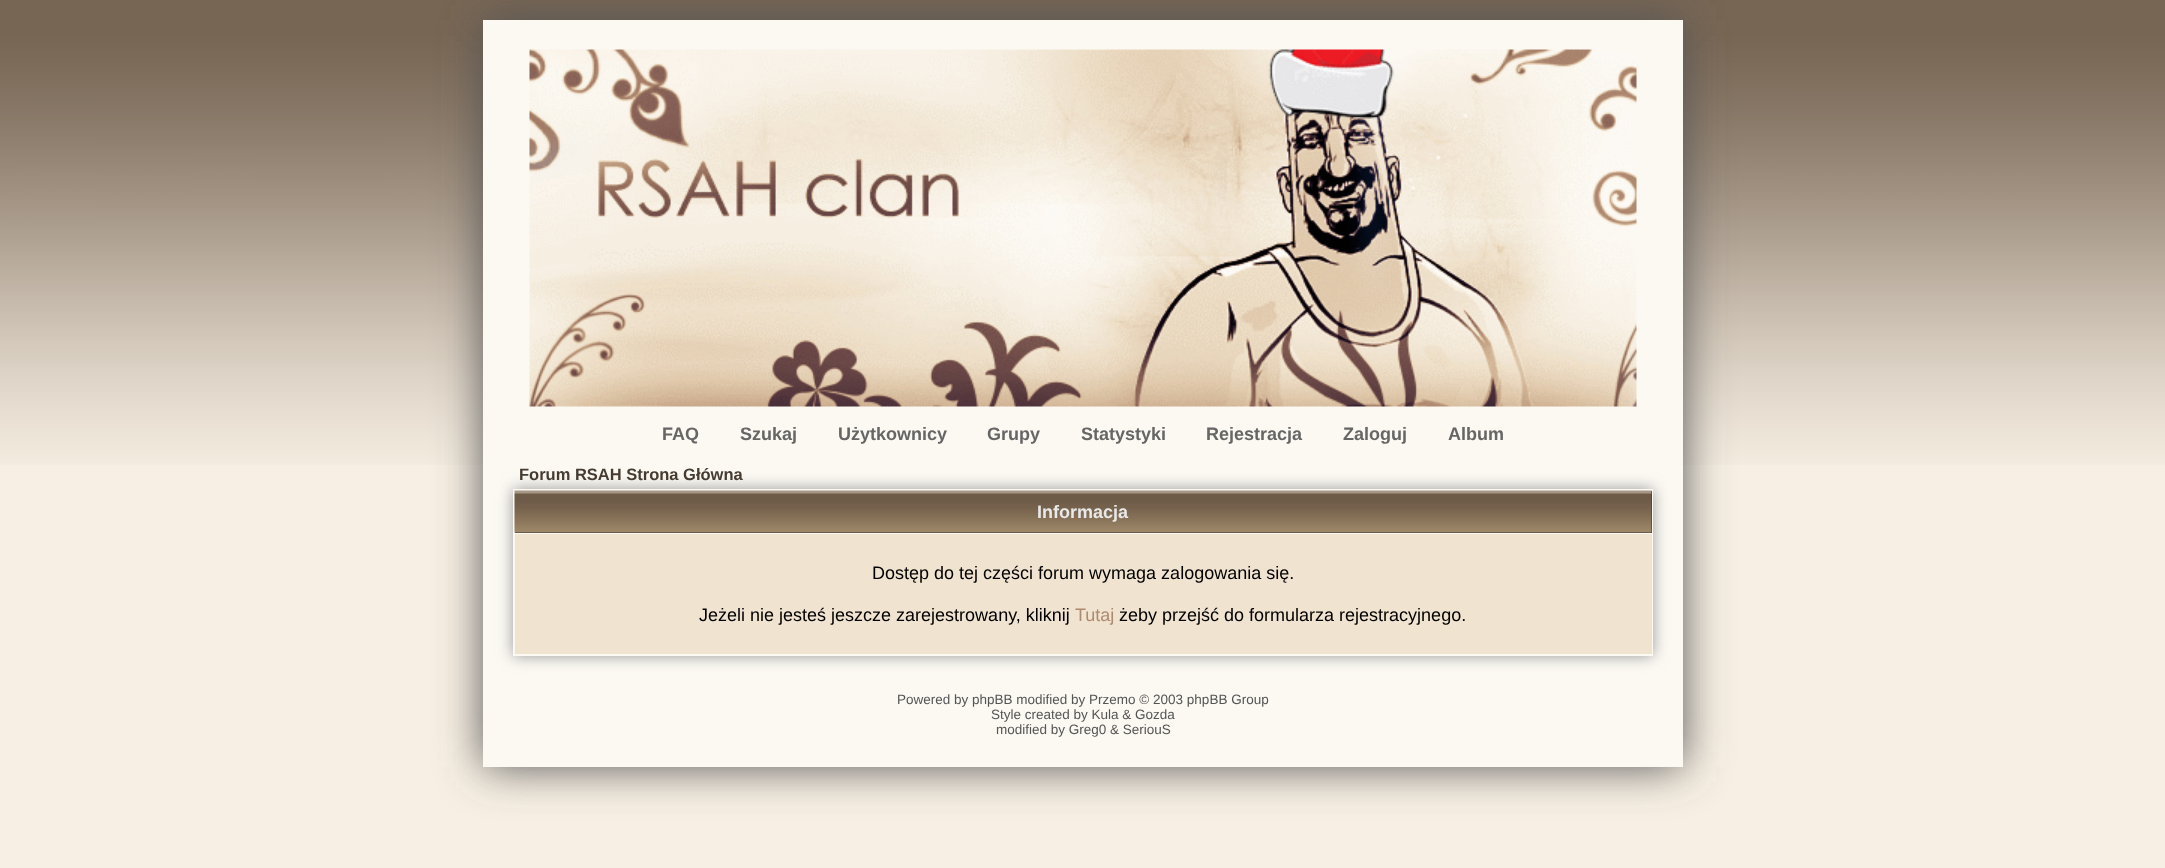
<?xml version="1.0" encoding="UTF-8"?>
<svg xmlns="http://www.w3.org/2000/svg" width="2165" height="868">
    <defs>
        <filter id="blur1" x="-50%" y="-200%" width="200%" height="500%"><feGaussianBlur stdDeviation="22.5"/></filter>
        <filter id="blur2" x="-50%" y="-200%" width="200%" height="500%"><feGaussianBlur stdDeviation="7.5"/></filter>
    </defs>
    <rect width="100%" height="100%" fill="#F7EFE3"/>
    <image x="0" y="0" width="2165" height="465" href="img_01.png"/>
    <rect x="483" y="20" width="1200" height="747" fill="#555555" filter="url(#blur1)"/>
    <rect x="483" y="20" width="1200" height="747" fill="#FCF9F3"/>
    <image x="529" y="49" width="1108" height="358" href="img_02.png"/>
    <text x="662" y="440" font-family="Liberation Sans" font-size="18" font-weight="700" fill="#666666">FAQ</text>
    <text x="740" y="440" font-family="Liberation Sans" font-size="18" font-weight="700" fill="#666666">Szukaj</text>
    <text x="838" y="440" font-family="Liberation Sans" font-size="18" font-weight="700" fill="#666666">Użytkownicy</text>
    <text x="987" y="440" font-family="Liberation Sans" font-size="18" font-weight="700" fill="#666666">Grupy</text>
    <text x="1081" y="440" font-family="Liberation Sans" font-size="18" font-weight="700" fill="#666666">Statystyki</text>
    <text x="1206" y="440" font-family="Liberation Sans" font-size="18" font-weight="700" fill="#666666">Rejestracja</text>
    <text x="1343" y="440" font-family="Liberation Sans" font-size="18" font-weight="700" fill="#666666">Zaloguj</text>
    <text x="1448" y="440" font-family="Liberation Sans" font-size="18" font-weight="700" fill="#666666">Album</text>
    <rect x="513" y="489" width="1140" height="167" fill="#999999" filter="url(#blur2)"/>
    <text x="519" y="480" font-family="Liberation Sans" font-size="16.5" font-weight="700" fill="#453B31">Forum RSAH Strona Główna</text>
    <rect x="513" y="489" width="1140" height="167" fill="#FCF9F3"/>
    <rect x="515" y="491" width="1137" height="42" fill="#303030"/>
    <image x="514" y="490" width="1138" height="43" href="img_03.png"/>
    <text x="1037" y="518" font-family="Liberation Sans" font-size="18" font-weight="700" fill="#E9E9E9">Informacja</text>
    <rect x="515" y="534" width="1137" height="120" fill="#F0E3CF"/>
    <text x="872" y="579" font-family="Liberation Sans" font-size="18" fill="#000000">Dostęp do tej części forum wymaga zalogowania się.</text>
    <text x="699" y="621" font-family="Liberation Sans" font-size="18" fill="#000000">Jeżeli nie jesteś jeszcze zarejestrowany, kliknij</text>
    <text x="1075" y="621" font-family="Liberation Sans" font-size="18" fill="#AF8A71">Tutaj</text>
    <text x="1119" y="621" font-family="Liberation Sans" font-size="18" fill="#000000">żeby przejść do formularza rejestracyjnego.</text>
    <text x="897" y="704" font-family="Liberation Sans" font-size="13.5" fill="#555555">Powered by phpBB modified by Przemo © 2003 phpBB Group</text>
    <text x="991" y="719" font-family="Liberation Sans" font-size="13.5" fill="#555555">Style created by Kula &amp; Gozda</text>
    <text x="996" y="734" font-family="Liberation Sans" font-size="13.5" fill="#555555">modified by Greg0 &amp; SeriouS</text>
</svg>
